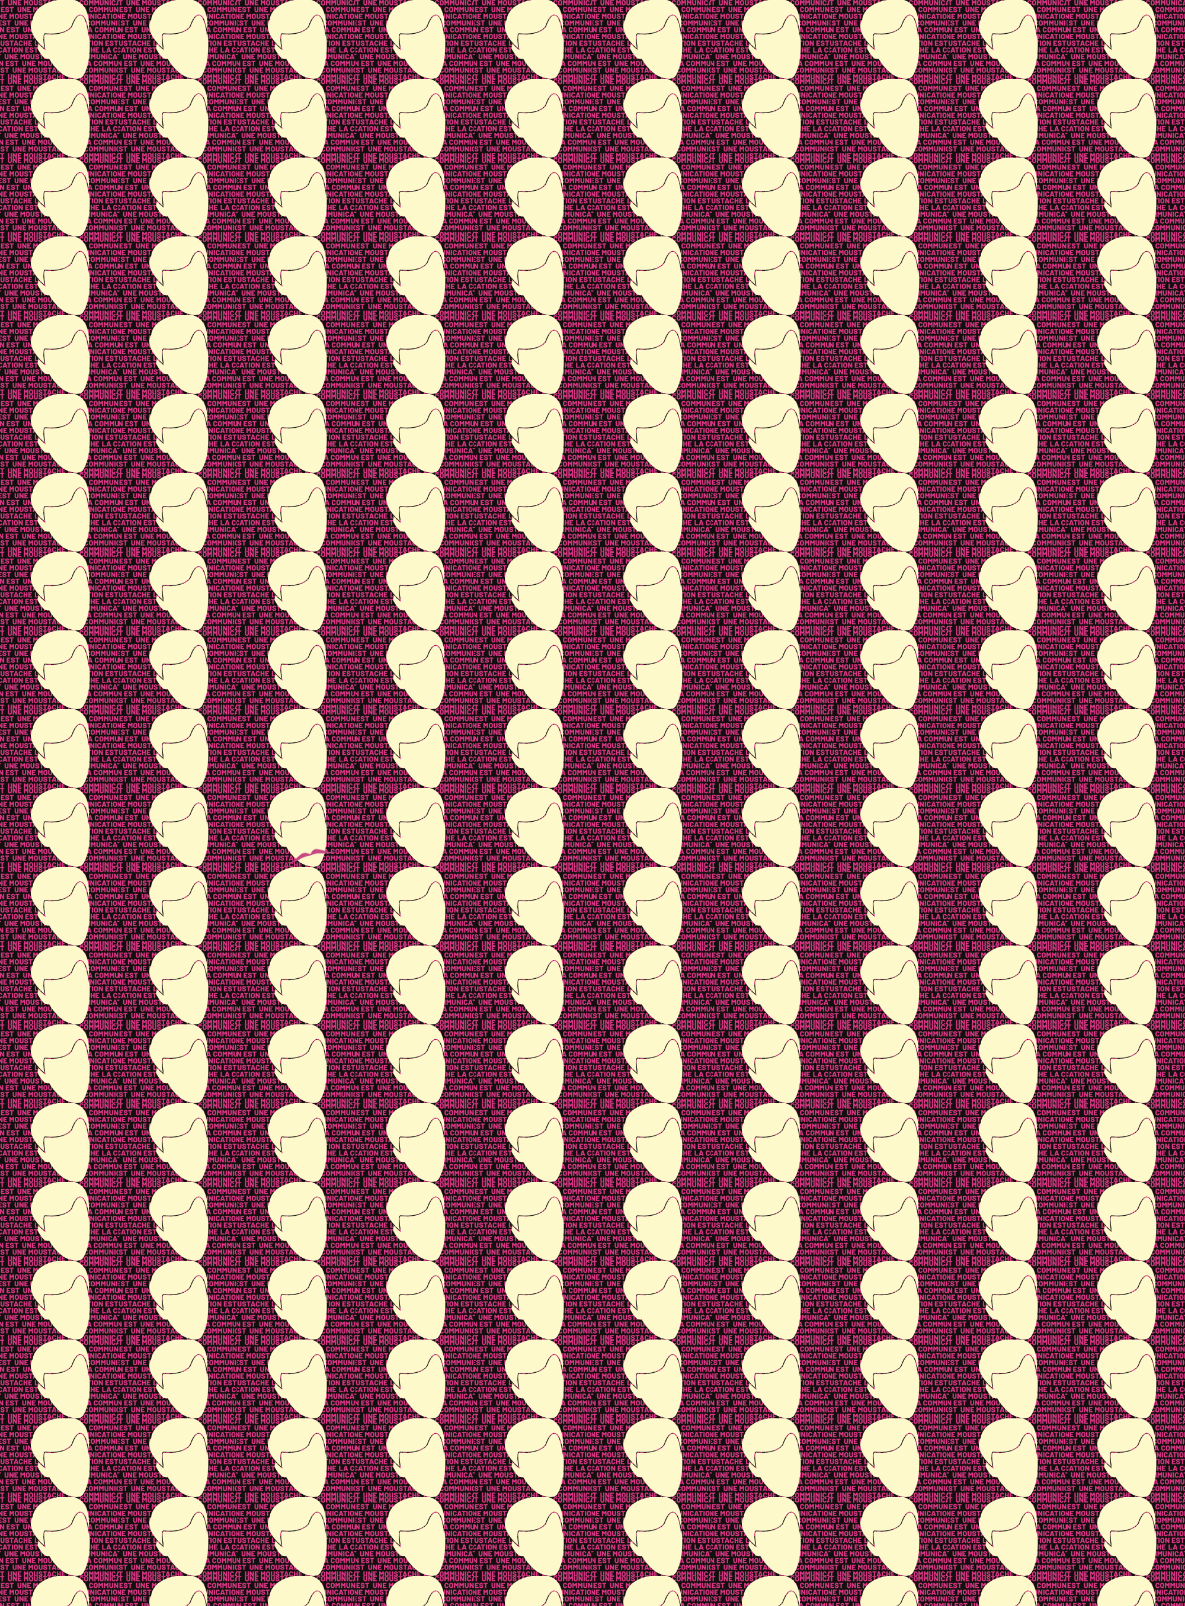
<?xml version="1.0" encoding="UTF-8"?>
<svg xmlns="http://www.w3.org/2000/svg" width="1185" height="1606">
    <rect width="100%" height="100%" fill="#FFFFFF"/>
    <image x="0" y="0" width="1185" height="1606" href="img_01.png"/>
    <image x="287" y="848" width="48" height="16" href="img_02.png"/>
</svg>
